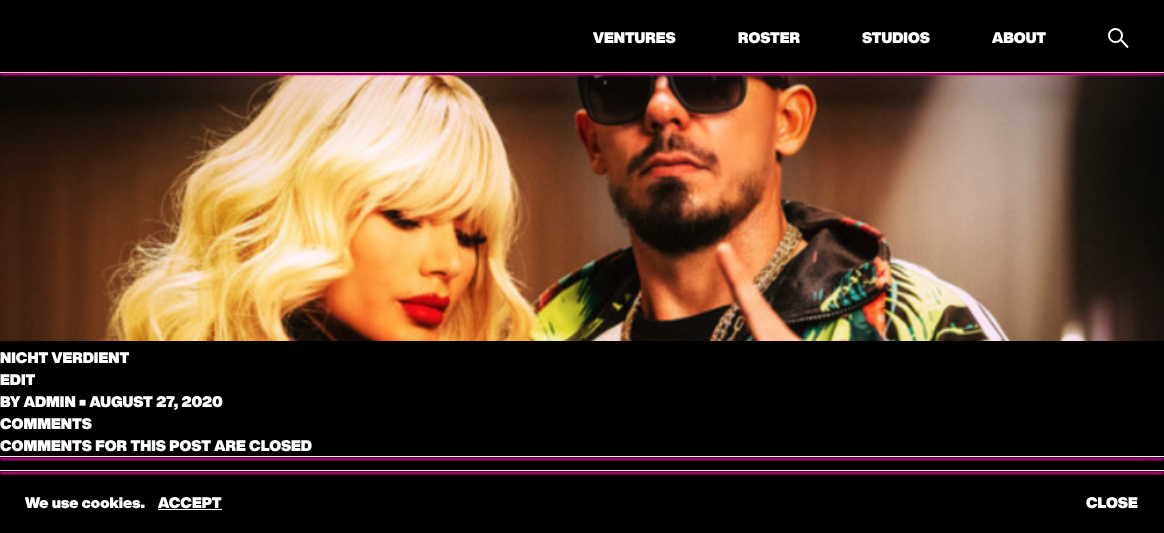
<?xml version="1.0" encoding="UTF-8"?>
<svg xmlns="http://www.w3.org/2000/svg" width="1164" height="533">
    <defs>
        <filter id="blur1" x="-50%" y="-200%" width="200%" height="500%"><feGaussianBlur stdDeviation="1"/></filter>
    </defs>
    <rect width="100%" height="100%" fill="#000000"/>
    <text x="593" y="43" font-family="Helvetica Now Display" font-size="15" font-weight="900" fill="#FFFFFF">VENTURES</text>
    <text x="738" y="43" font-family="Helvetica Now Display" font-size="15" font-weight="900" fill="#FFFFFF">ROSTER</text>
    <text x="862" y="43" font-family="Helvetica Now Display" font-size="15" font-weight="900" fill="#FFFFFF">STUDIOS</text>
    <text x="992" y="43" font-family="Helvetica Now Display" font-size="15" font-weight="900" fill="#FFFFFF">ABOUT</text>
    <circle cx="1115.5" cy="35.5" r="6.5" fill="none" stroke="#FFFFFF" stroke-width="2"/>
    <path d="M 1121 40 L 1128 47.5" fill="none" stroke="#FFFFFF" stroke-width="2"/>
    <rect x="0" y="72" width="1164" height="1" fill="#FFFFFF"/>
    <image x="0" y="75" width="1164" height="266" href="img_01.png"/>
    <rect x="0" y="73" width="1164" height="2" fill="#FF15A5" filter="url(#blur1)"/>
    <text font-family="Helvetica Now Display" font-size="15" font-weight="900" fill="#FFFFFF">
        <tspan x="0" y="363">NICHT VERDIENT</tspan>
        <tspan x="0" y="385">EDIT</tspan>
        <tspan x="0" y="407">BY ADMIN • AUGUST 27, 2020</tspan>
        <tspan x="0" y="429">COMMENTS</tspan>
        <tspan x="0" y="451">COMMENTS FOR THIS POST ARE CLOSED</tspan>
    </text>
    <rect x="0" y="456" width="1164" height="1" fill="#FFFFFF"/>
    <rect x="0" y="458" width="1164" height="2" fill="#FF15A5" filter="url(#blur1)"/>
    <rect x="0" y="470" width="1164" height="1" fill="#FFFFFF"/>
    <rect x="0" y="472" width="1164" height="2" fill="#FF15A5" filter="url(#blur1)"/>
    <text x="25" y="508" font-family="Helvetica Now Display" font-size="15" font-weight="900" fill="#FFFFFF">We use cookies.</text>
    <text x="158" y="508" font-family="Helvetica Now Display" font-size="15" font-weight="900" fill="#FFFFFF">ACCEPT</text>
    <rect x="158" y="509" width="64" height="1" fill="#FFFFFF"/>
    <text x="1086" y="508" font-family="Helvetica Now Display" font-size="15" font-weight="900" fill="#FFFFFF">CLOSE</text>
</svg>
